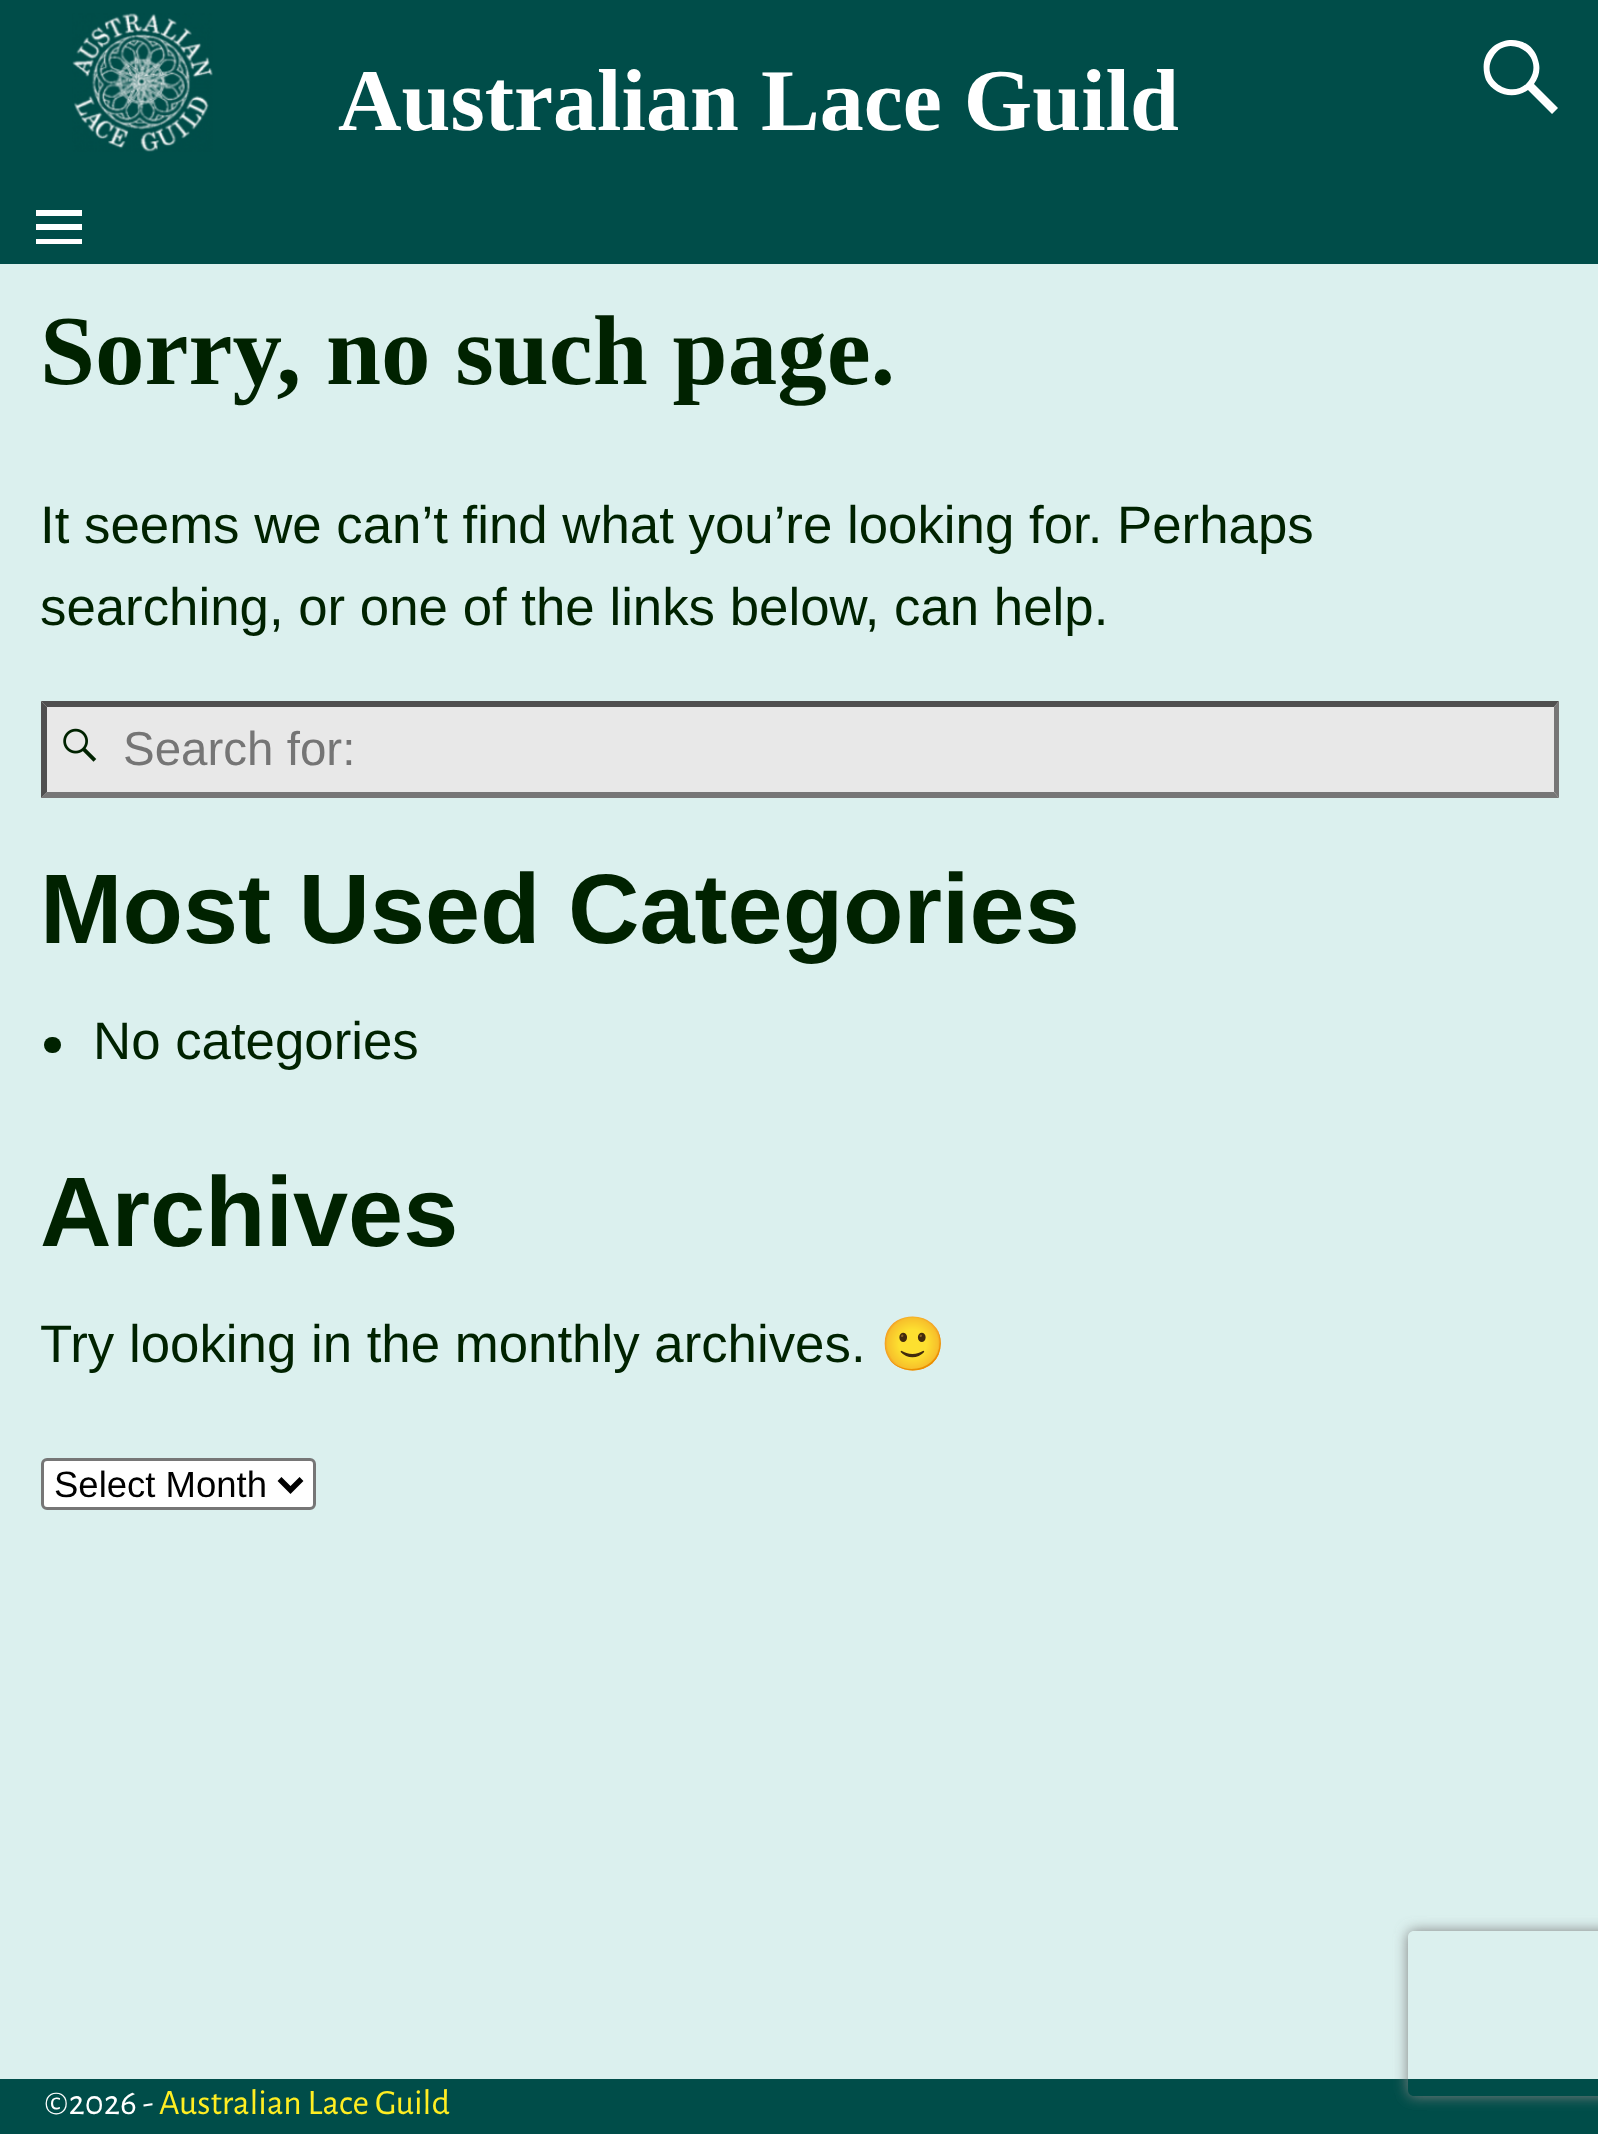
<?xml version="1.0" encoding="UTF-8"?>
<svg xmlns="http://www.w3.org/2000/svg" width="1598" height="2134">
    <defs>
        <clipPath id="clip1"><path d="M 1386 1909 H 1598 V 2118 H 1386 Z M 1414 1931 H 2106 C 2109.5 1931 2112 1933.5 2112 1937 V 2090 C 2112 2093.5 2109.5 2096 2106 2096 H 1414 C 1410.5 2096 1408 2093.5 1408 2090 V 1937 C 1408 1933.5 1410.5 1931 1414 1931 Z" clip-rule="evenodd"/></clipPath>
        <filter id="blur1" x="-50%" y="-200%" width="200%" height="500%"><feGaussianBlur stdDeviation="7"/></filter>
    </defs>
    <rect width="100%" height="100%" fill="#DBF0EE"/>
    <rect x="0" y="0" width="1598" height="264" fill="#004D49"/>
    <image x="72" y="13" width="141" height="139" href="img_01.png"/>
    <text x="338" y="130" font-family="Liberation Serif" font-size="88" font-weight="700" fill="#FFFFFF">Australian Lace Guild</text>
    <path d="M 1558 108 L 1552 114 L 1528 90 C 1514 100 1494 95 1486 80 C 1484 75 1483 68 1484 62 C 1490 34 1531 32 1538 60 C 1541 69 1539 77 1534 84 Z M 1493 57 C 1478 81 1516 103 1530 79 C 1545 54 1507 32 1493 57 Z" fill="#FFFFFF"/>
    <path d="M 36 244 V 239 H 82 V 244 Z M 36 210 H 82 V 216 H 36 Z M 36 230 V 224 H 82 V 230 Z" fill="#FFFFFF"/>
    <text x="40" y="384" font-family="Liberation Serif" font-size="99" font-weight="700" fill="#002200">Sorry, no such page.</text>
    <text font-family="Liberation Sans" font-size="52.8" fill="#002200">
        <tspan x="40" y="543">It seems we can’t find what you’re looking for. Perhaps</tspan>
        <tspan x="40" y="625">searching, or one of the links below, can help.</tspan>
    </text>
    <rect x="41" y="701" width="1518" height="97" fill="#E8E8E8"/>
    <image x="63" y="728" width="34" height="34" href="img_02.png"/>
    <path d="M 41 701 H 1559 L 1554 707 H 47 Z" fill="#4F4F4F"/>
    <path d="M 1559 701 V 798 L 1554 792 V 707 Z" fill="#767676"/>
    <path d="M 1559 798 H 41 L 47 792 H 1554 Z" fill="#767676"/>
    <path d="M 41 798 V 701 L 47 707 V 792 Z" fill="#4F4F4F"/>
    <text x="123" y="765" font-family="Liberation Sans" font-size="47.5" fill="#757575">Search for:</text>
    <text x="40" y="943" font-family="Liberation Sans" font-size="99" font-weight="700" fill="#002200">Most Used Categories</text>
    <rect x="44" y="1037" width="17" height="16" rx="8" fill="#002200"/>
    <text x="93" y="1059" font-family="Liberation Sans" font-size="52.8" fill="#002200">No categories</text>
    <text x="40" y="1246" font-family="Liberation Sans" font-size="99" font-weight="700" fill="#002200">Archives</text>
    <text x="40" y="1362" font-family="Liberation Sans" font-size="52.8" fill="#002200">Try looking in the monthly archives.</text>
    <text x="880" y="1362" font-family="Noto Color Emoji" font-size="52.8" fill="#002200">🙂</text>
    <rect x="42.5" y="1459.5" width="272" height="49" rx="4.5" fill="#FFFFFF" stroke="#767676" stroke-width="3"/>
    <path d="M 279.5 1479 L 290.5 1490 L 301.5 1479" fill="none" stroke="#000000" stroke-width="5.5"/>
    <text x="54" y="1497" font-family="Liberation Sans" font-size="36.5" fill="#000000">Select Month</text>
    <rect x="0" y="2079" width="1598" height="55" fill="#004D49"/>
    <text x="44" y="2114" font-family="Alegreya Sans" font-size="35.75" fill="#FFFFFF">©2026 -</text>
    <text x="159" y="2114" font-family="Alegreya Sans" font-size="35.75" fill="#FFEE22">Australian Lace Guild</text>
    <g clip-path="url(#clip1)">
        <rect x="1408" y="1931" width="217" height="165" rx="6" fill="#808080" filter="url(#blur1)"/>
    </g>
</svg>
